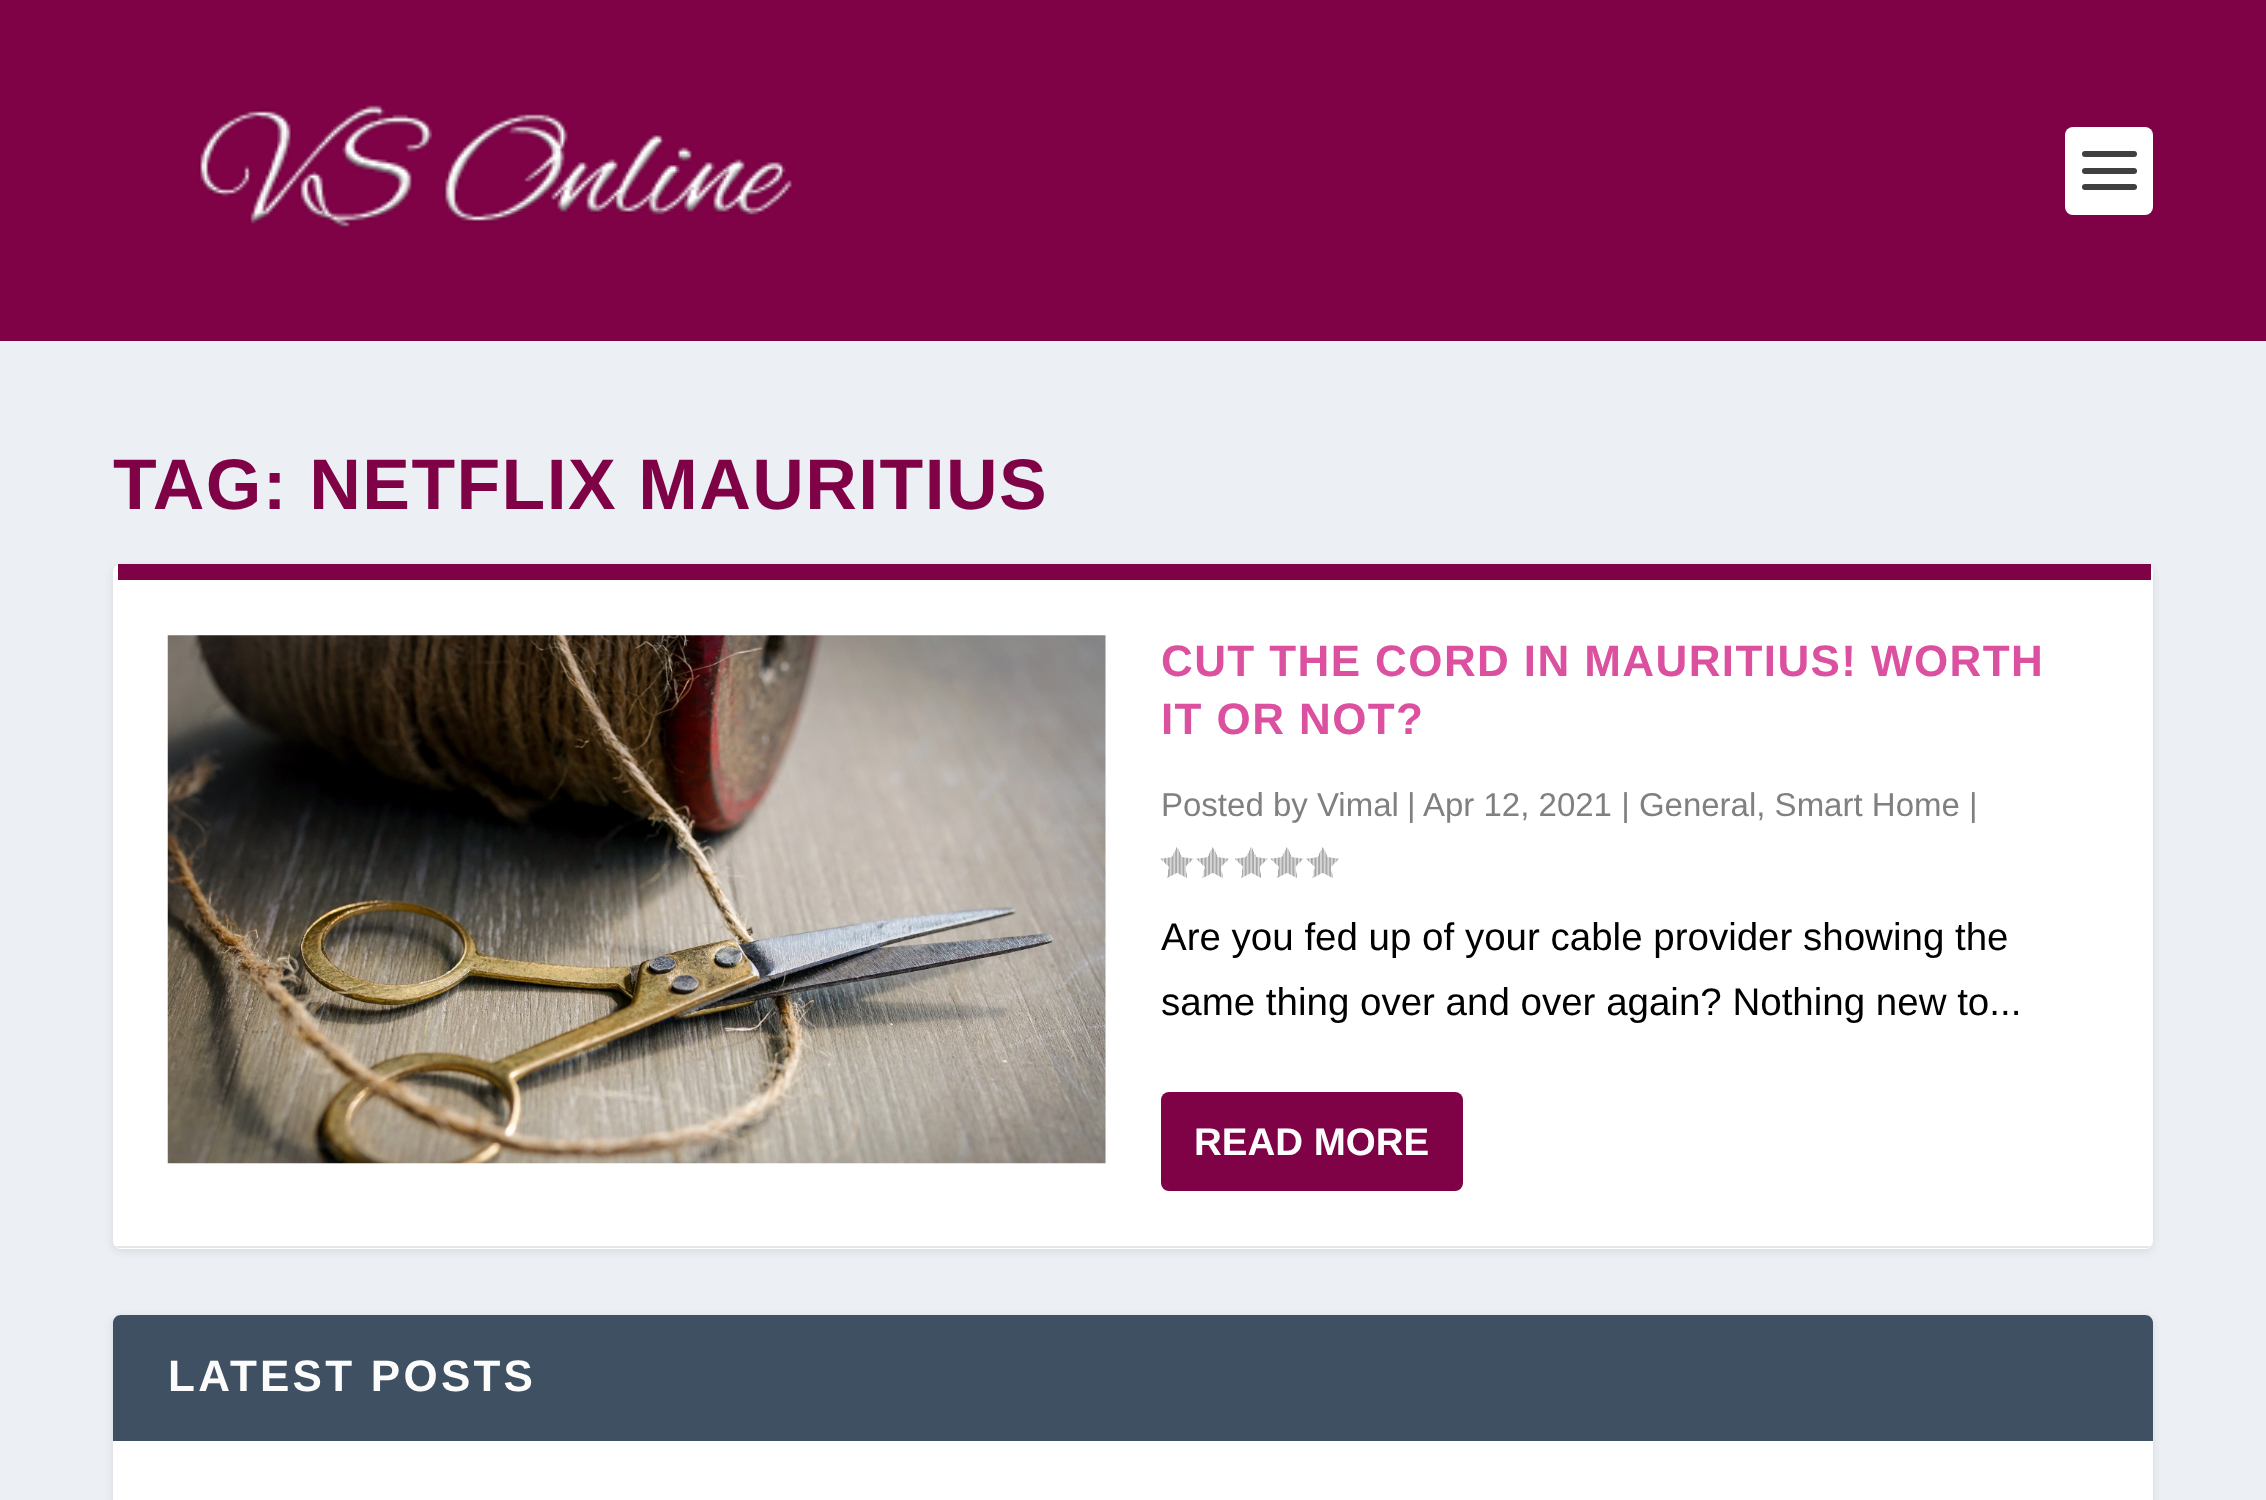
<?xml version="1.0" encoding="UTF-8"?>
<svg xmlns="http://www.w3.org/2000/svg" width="2266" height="1500">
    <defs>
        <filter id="blur1" x="-50%" y="-200%" width="200%" height="500%"><feGaussianBlur stdDeviation="4"/></filter>
    </defs>
    <rect width="100%" height="100%" fill="#ECF0F5"/>
    <rect x="0" y="0" width="2266" height="341" fill="#7F0247"/>
    <image x="198" y="105" width="594" height="123" href="img_01.png"/>
    <rect x="2065" y="127" width="88" height="88" rx="8" fill="#FFFFFF"/>
    <rect x="2082" y="151" width="55" height="6" rx="3" fill="#404040"/>
    <rect x="2082" y="168" width="55" height="6" rx="3" fill="#404040"/>
    <rect x="2082" y="184" width="55" height="6" rx="3" fill="#404040"/>
    <text x="113" y="509" font-family="Liberation Sans" font-size="71.5" font-weight="700" letter-spacing="1.4" fill="#7F0247">TAG: NETFLIX MAURITIUS</text>
    <rect x="113" y="567" width="2040" height="684" rx="8" fill="#000000" fill-opacity="0.1" filter="url(#blur1)"/>
    <rect x="113" y="564" width="2040" height="685" rx="8" fill="#FFFFFF"/>
    <rect x="118" y="564" width="2033" height="16" fill="#7F0247"/>
    <path d="M 2151 1246 C 2149 1248 2147 1248 2145 1248 H 121 C 119 1248 117 1248 115 1246 Z" fill="#E5E5E5"/>
    <image x="167" y="635" width="939" height="529" href="img_02.png"/>
    <text font-family="Liberation Sans" font-size="44" font-weight="700" letter-spacing="1.4" fill="#DB509F">
        <tspan x="1161" y="676">CUT THE CORD IN MAURITIUS! WORTH</tspan>
        <tspan x="1161" y="734">IT OR NOT?</tspan>
    </text>
    <text x="1161" y="816" font-family="Liberation Sans" font-size="33" fill="#808080">Posted by Vimal</text>
    <text x="1407" y="816" font-family="Liberation Sans" font-size="33" fill="#808080">|</text>
    <text x="1423" y="816" font-family="Liberation Sans" font-size="33" fill="#808080">Apr 12, 2021 | General, Smart Home |</text>
    <image x="1160" y="847" width="34" height="31" href="img_03.png"/>
    <image x="1196" y="847" width="33" height="31" href="img_04.png"/>
    <image x="1235" y="847" width="33" height="31" href="img_05.png"/>
    <image x="1270" y="847" width="34" height="31" href="img_03.png"/>
    <image x="1306" y="847" width="33" height="31" href="img_04.png"/>
    <text font-family="Liberation Sans" font-size="38.5" fill="#000000">
        <tspan x="1161" y="950">Are you fed up of your cable provider showing the</tspan>
        <tspan x="1161" y="1015">same thing over and over again? Nothing new to...</tspan>
    </text>
    <rect x="1161" y="1092" width="302" height="99" rx="8" fill="#7F0247"/>
    <text x="1194" y="1155" font-family="Liberation Sans" font-size="38.5" font-weight="700" fill="#FCFCFC">READ MORE</text>
    <rect x="113" y="1317" width="2040" height="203" rx="8" fill="#000000" fill-opacity="0.1" filter="url(#blur1)"/>
    <rect x="113" y="1315" width="2040" height="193" rx="8" fill="#FFFFFF"/>
    <path d="M 121 1315 H 2145 C 2149.5 1315 2153 1318.5 2153 1323 V 1441 H 113 V 1323 C 113 1318.5 116.5 1315 121 1315 Z" fill="#3E5062"/>
    <text x="168" y="1391" font-family="Liberation Sans" font-size="44" font-weight="700" letter-spacing="3.25" fill="#FCFCFC">LATEST POSTS</text>
</svg>
